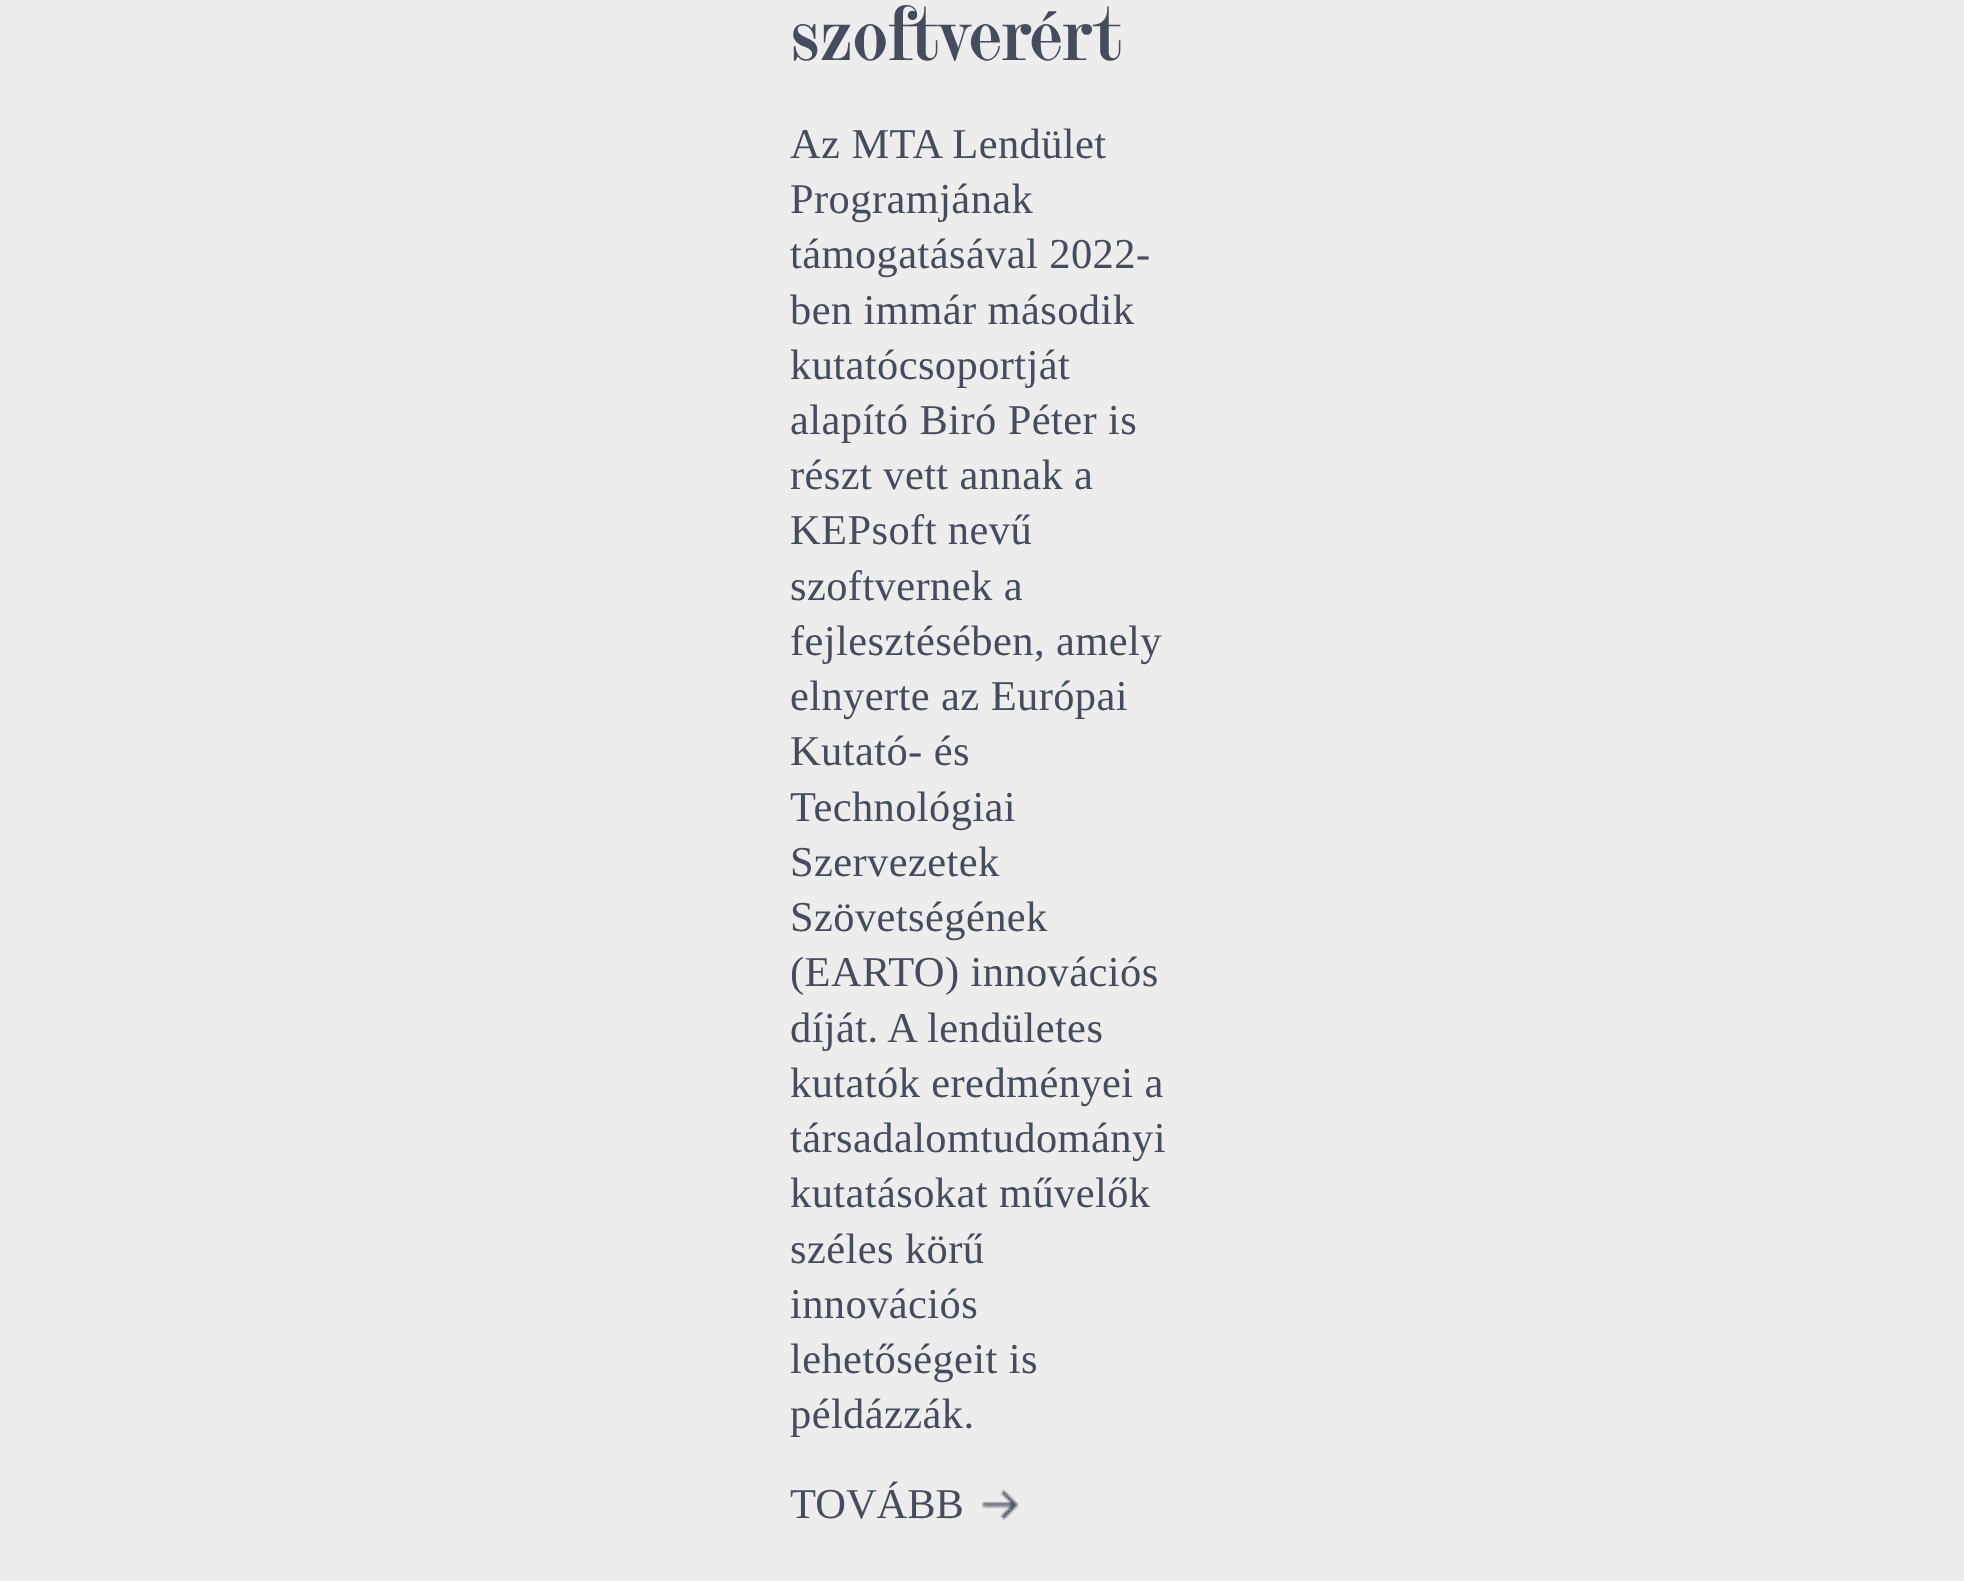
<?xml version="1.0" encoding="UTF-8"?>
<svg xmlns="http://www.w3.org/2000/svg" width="1964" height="1581">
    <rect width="100%" height="100%" fill="#EDEDED"/>
    <text x="790" y="60" font-family="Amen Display" font-size="75" font-weight="500" letter-spacing="0.75" fill="#454C5D">szoftverért</text>
    <text font-family="Liberation Serif" font-size="42.5" letter-spacing="0.4" fill="#454C5D">
        <tspan x="790" y="158">Az MTA Lendület</tspan>
        <tspan x="790" y="213">Programjának</tspan>
        <tspan x="790" y="268">támogatásával 2022-</tspan>
        <tspan x="790" y="324">ben immár második</tspan>
        <tspan x="790" y="379">kutatócsoportját</tspan>
        <tspan x="790" y="434">alapító Biró Péter is</tspan>
        <tspan x="790" y="489">részt vett annak a</tspan>
        <tspan x="790" y="544">KEPsoft nevű</tspan>
        <tspan x="790" y="600">szoftvernek a</tspan>
        <tspan x="790" y="655">fejlesztésében, amely</tspan>
        <tspan x="790" y="710">elnyerte az Európai</tspan>
        <tspan x="790" y="765">Kutató- és</tspan>
        <tspan x="790" y="821">Technológiai</tspan>
        <tspan x="790" y="876">Szervezetek</tspan>
        <tspan x="790" y="931">Szövetségének</tspan>
        <tspan x="790" y="986">(EARTO) innovációs</tspan>
        <tspan x="790" y="1042">díját. A lendületes</tspan>
        <tspan x="790" y="1097">kutatók eredményei a</tspan>
        <tspan x="790" y="1152">társadalomtudományi</tspan>
        <tspan x="790" y="1207">kutatásokat művelők</tspan>
        <tspan x="790" y="1263">széles körű</tspan>
        <tspan x="790" y="1318">innovációs</tspan>
        <tspan x="790" y="1373">lehetőségeit is</tspan>
        <tspan x="790" y="1428">példázzák.</tspan>
    </text>
    <text x="790" y="1518" font-family="Liberation Serif" font-size="42.5" fill="#454C5D">TOVÁBB</text>
    <image x="981" y="1489" width="38" height="31" href="img_01.png"/>
</svg>
